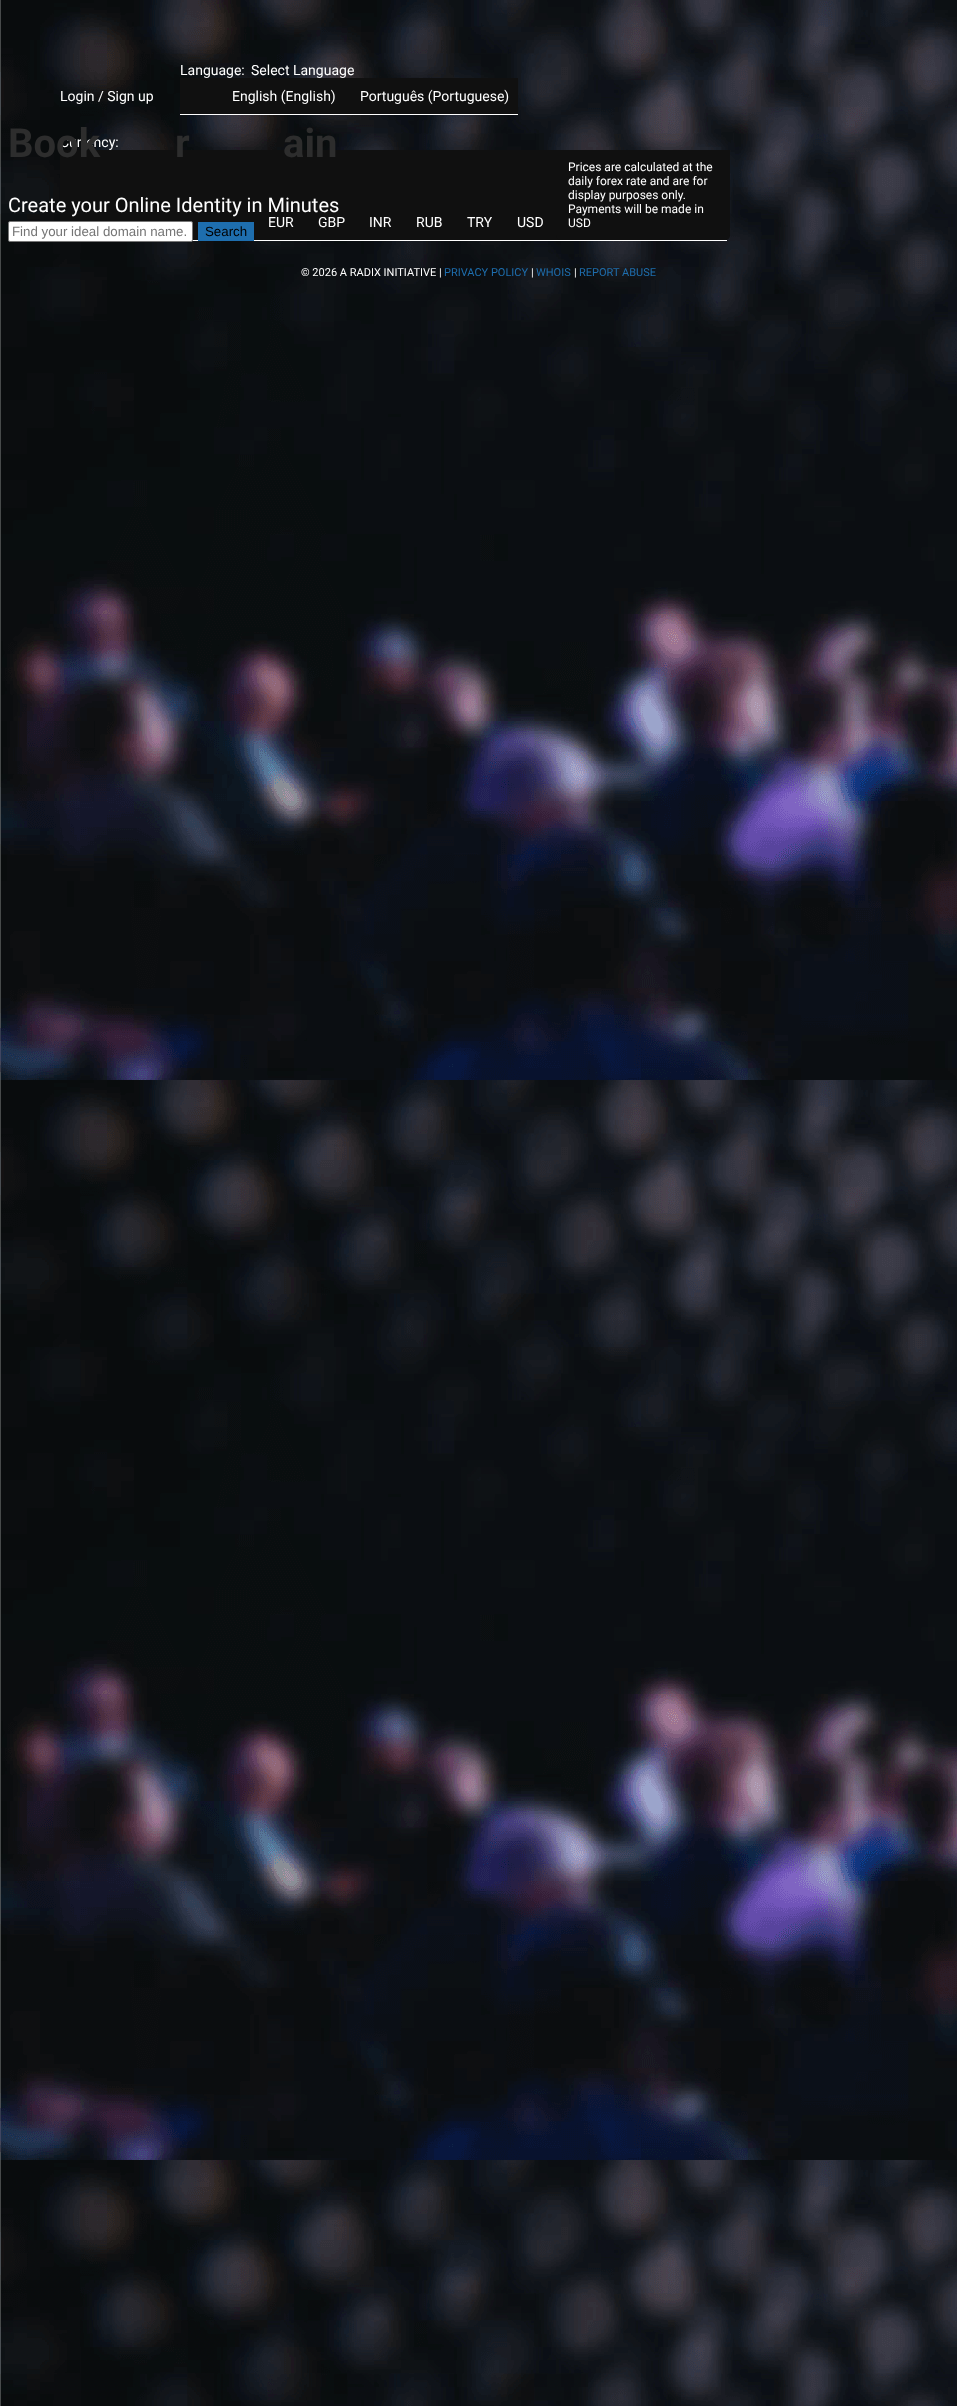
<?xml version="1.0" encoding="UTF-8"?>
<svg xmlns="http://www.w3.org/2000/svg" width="957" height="2406">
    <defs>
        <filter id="blur1" x="-50%" y="-200%" width="200%" height="500%"><feGaussianBlur stdDeviation="0.5"/></filter>
    </defs>
    <rect width="100%" height="100%" fill="#FFFFFF"/>
    <image x="0" y="0" width="957" height="2406" href="img_01.png"/>
    <text x="60" y="101" font-family="Roboto" font-size="14" fill="#FFFFFF">Login / Sign up</text>
    <rect x="180" y="79" width="338" height="36" fill="#FFFFFF" filter="url(#blur1)"/>
    <text x="180" y="75" font-family="Roboto" font-size="14" fill="#FFFFFF">Language:</text>
    <text x="251" y="75" font-family="Roboto" font-size="14" fill="#FFFFFF">Select Language</text>
    <rect x="180" y="78" width="338" height="36" fill="#101010"/>
    <text x="232" y="101" font-family="Roboto" font-size="14" fill="#FFFFFF">English (English)</text>
    <text x="360" y="101" font-family="Roboto" font-size="14" fill="#FFFFFF">Português (Portuguese)</text>
    <rect x="60" y="151" width="667" height="90" fill="#FFFFFF" filter="url(#blur1)"/>
    <text x="60" y="147" font-family="Roboto" font-size="14" fill="#FFFFFF">Currency:</text>
    <rect x="60" y="150" width="667" height="90" fill="#101010"/>
    <text x="268" y="227" font-family="Roboto" font-size="14" fill="#FFFFFF">EUR</text>
    <text x="318" y="227" font-family="Roboto" font-size="14" fill="#FFFFFF">GBP</text>
    <text x="369" y="227" font-family="Roboto" font-size="14" fill="#FFFFFF">INR</text>
    <text x="416" y="227" font-family="Roboto" font-size="14" fill="#FFFFFF">RUB</text>
    <text x="467" y="227" font-family="Roboto" font-size="14" fill="#FFFFFF">TRY</text>
    <text x="517" y="227" font-family="Roboto" font-size="14" fill="#FFFFFF">USD</text>
    <path d="M 556 150 H 730 V 235 C 730 238 728 240 725 240 H 561 C 558 240 556 238 556 235 Z" fill="#101010"/>
    <text font-family="Roboto" font-size="12" fill="#FFFFFF">
        <tspan x="568" y="171">Prices are calculated at the</tspan>
        <tspan x="568" y="185">daily forex rate and are for</tspan>
        <tspan x="568" y="199">display purposes only.</tspan>
        <tspan x="568" y="213">Payments will be made in</tspan>
        <tspan x="568" y="227">USD</tspan>
    </text>
    <text x="8" y="157" font-family="Roboto" font-size="40" font-weight="700" fill="#2D2D2D">Book</text>
    <text x="175" y="157" font-family="Roboto" font-size="40" font-weight="700" fill="#2D2D2D">r</text>
    <text x="283" y="157" font-family="Roboto" font-size="40" font-weight="700" fill="#2D2D2D">ain</text>
    <text x="8" y="212" font-family="Roboto" font-size="20" fill="#FFFFFF">Create your Online Identity in Minutes</text>
    <rect x="8.5" y="221.5" width="184" height="20" rx="1.5" fill="#FFFFFF" stroke="#767676"/>
    <text x="12" y="236" font-family="Liberation Sans" font-size="13.3" fill="#757575">Find your ideal domain name.</text>
    <rect x="198" y="222" width="56" height="19" fill="#1E6EAE"/>
    <text x="205" y="236" font-family="Liberation Sans" font-size="13.3" fill="#000000">Search</text>
    <text x="301" y="276" font-family="Roboto" font-size="11" fill="#FFFFFF">© 2026 A RADIX INITIATIVE |</text>
    <text x="444" y="276" font-family="Roboto" font-size="11" fill="#1E6EAE">PRIVACY POLICY</text>
    <text x="531" y="276" font-family="Roboto" font-size="11" fill="#FFFFFF">|</text>
    <text x="536" y="276" font-family="Roboto" font-size="11" fill="#1E6EAE">WHOIS</text>
    <text x="574" y="276" font-family="Roboto" font-size="11" fill="#FFFFFF">|</text>
    <text x="579" y="276" font-family="Roboto" font-size="11" fill="#1E6EAE">REPORT ABUSE</text>
</svg>
